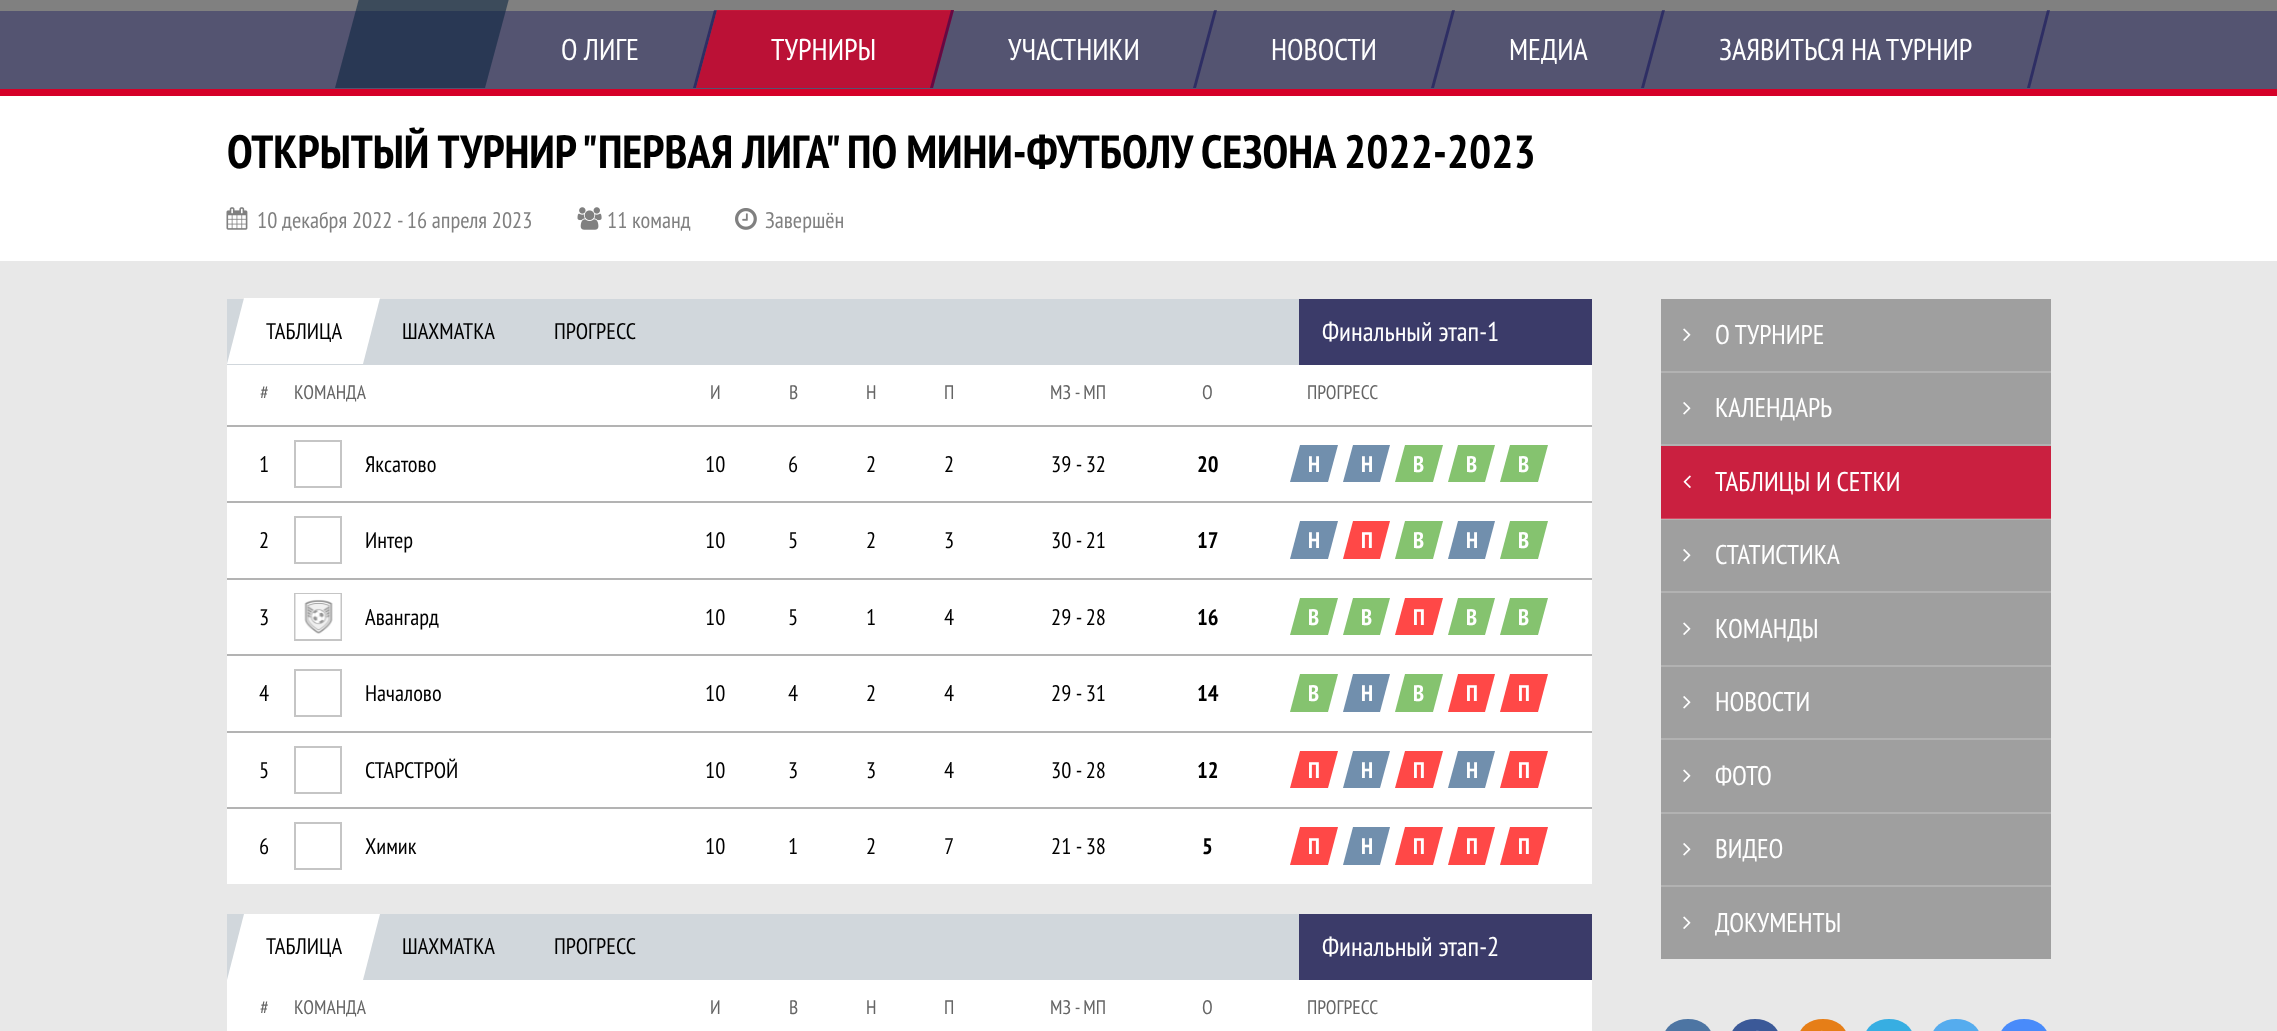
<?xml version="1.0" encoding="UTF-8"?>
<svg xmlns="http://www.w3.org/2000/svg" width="2277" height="1031">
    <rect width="100%" height="100%" fill="#E8E8E8"/>
    <rect x="0" y="0" width="2277" height="11" fill="#808080"/>
    <rect x="0" y="11" width="2277" height="78" fill="#545471"/>
    <path d="M 403 -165 H 553 L 485 88 H 335 Z" fill="#0C2641" fill-opacity="0.59"/>
    <path d="M 714 10 H 717 L 696 88 H 693 Z" fill="#000055" fill-opacity="0.45"/>
    <text x="561" y="60" font-family="PT Sans Narrow" font-size="30" fill="#FFFFFF">О ЛИГЕ</text>
    <path d="M 717 10 H 954 L 933 88 H 696 Z" fill="#D50028" fill-opacity="0.8"/>
    <path d="M 951 10 H 954 L 933 88 H 930 Z" fill="#000055" fill-opacity="0.45"/>
    <text x="771" y="60" font-family="PT Sans Narrow" font-size="30" fill="#FFFFFF">ТУРНИРЫ</text>
    <path d="M 1214 10 H 1217 L 1196 88 H 1193 Z" fill="#000055" fill-opacity="0.45"/>
    <text x="1008" y="60" font-family="PT Sans Narrow" font-size="30" fill="#FFFFFF">УЧАСТНИКИ</text>
    <path d="M 1452 10 H 1455 L 1434 88 H 1431 Z" fill="#000055" fill-opacity="0.45"/>
    <text x="1271" y="60" font-family="PT Sans Narrow" font-size="30" fill="#FFFFFF">НОВОСТИ</text>
    <path d="M 1662 10 H 1665 L 1644 88 H 1641 Z" fill="#000055" fill-opacity="0.45"/>
    <text x="1509" y="60" font-family="PT Sans Narrow" font-size="30" fill="#FFFFFF">МЕДИА</text>
    <path d="M 2047 10 H 2050 L 2030 88 H 2027 Z" fill="#000055" fill-opacity="0.45"/>
    <text x="1719" y="60" font-family="PT Sans Narrow" font-size="30" fill="#FFFFFF">ЗАЯВИТЬСЯ НА ТУРНИР</text>
    <rect x="0" y="89" width="2277" height="7" fill="#D50028"/>
    <rect x="0" y="96" width="2277" height="165" fill="#FFFFFF"/>
    <text x="227" y="168" font-family="PT Sans Narrow" font-size="46.5" font-weight="700" fill="#000000">ОТКРЫТЫЙ ТУРНИР "ПЕРВАЯ ЛИГА" ПО МИНИ-ФУТБОЛУ СЕЗОНА 2022-2023</text>
    <image x="226" y="207" width="22" height="23" href="img_01.png"/>
    <text x="257" y="228" font-family="PT Sans Narrow" font-size="22.5" fill="#808080">10 декабря 2022 - 16 апреля 2023</text>
    <image x="577" y="207" width="25" height="23" href="img_02.png"/>
    <text x="607" y="228" font-family="PT Sans Narrow" font-size="22.5" fill="#808080">11 команд</text>
    <image x="735" y="208" width="22" height="22" href="img_03.png"/>
    <text x="765" y="228" font-family="PT Sans Narrow" font-size="22.5" fill="#808080">Завершён</text>
    <rect x="227" y="299" width="1072" height="66" fill="#D1D7DC"/>
    <path d="M 244 298 H 380 L 363 364 H 227 Z" fill="#FFFFFF"/>
    <text x="266" y="339" font-family="PT Sans Narrow" font-size="22.5" fill="#000000">ТАБЛИЦА</text>
    <text x="402" y="339" font-family="PT Sans Narrow" font-size="22.5" fill="#000000">ШАХМАТКА</text>
    <text x="554" y="339" font-family="PT Sans Narrow" font-size="22.5" fill="#000000">ПРОГРЕСС</text>
    <rect x="1299" y="299" width="293" height="66" fill="#3B3B69"/>
    <text x="1322" y="341" font-family="PT Sans Narrow" font-size="27" fill="#FFFFFF">Финальный этап-1</text>
    <rect x="227" y="365" width="1365" height="519" fill="#FFFFFF"/>
    <rect x="227" y="425" width="1365" height="2" fill="#B3B3B3"/>
    <text x="260" y="399" font-family="PT Sans Narrow" font-size="19.5" fill="#656565">#</text>
    <text x="294" y="399" font-family="PT Sans Narrow" font-size="19.5" fill="#656565">КОМАНДА</text>
    <text x="710" y="399" font-family="PT Sans Narrow" font-size="19.5" fill="#656565">И</text>
    <text x="789" y="399" font-family="PT Sans Narrow" font-size="19.5" fill="#656565">В</text>
    <text x="866" y="399" font-family="PT Sans Narrow" font-size="19.5" fill="#656565">Н</text>
    <text x="944" y="399" font-family="PT Sans Narrow" font-size="19.5" fill="#656565">П</text>
    <text x="1050" y="399" font-family="PT Sans Narrow" font-size="19.5" fill="#656565">МЗ - МП</text>
    <text x="1202" y="399" font-family="PT Sans Narrow" font-size="19.5" fill="#656565">О</text>
    <text x="1307" y="399" font-family="PT Sans Narrow" font-size="19.5" fill="#656565">ПРОГРЕСС</text>
    <rect x="227" y="501" width="1365" height="2" fill="#B3B3B3"/>
    <text x="259" y="472" font-family="PT Sans Narrow" font-size="22.5" fill="#000000">1</text>
    <rect x="295" y="441" width="46" height="46" fill="none" stroke="#C5C5C5" stroke-width="2"/>
    <text x="365" y="472" font-family="PT Sans Narrow" font-size="22.5" fill="#000000">Яксатово</text>
    <text x="705" y="472" font-family="PT Sans Narrow" font-size="22.5" fill="#000000">10</text>
    <text x="788" y="472" font-family="PT Sans Narrow" font-size="22.5" fill="#000000">6</text>
    <text x="866" y="472" font-family="PT Sans Narrow" font-size="22.5" fill="#000000">2</text>
    <text x="944" y="472" font-family="PT Sans Narrow" font-size="22.5" fill="#000000">2</text>
    <text x="1051" y="472" font-family="PT Sans Narrow" font-size="22.5" fill="#000000">39 - 32</text>
    <text x="1197" y="472" font-family="PT Sans Narrow" font-size="22.5" font-weight="700" fill="#000000">20</text>
    <path d="M 1300 445 H 1338 L 1328 482 H 1290 Z" fill="#718FAD"/>
    <text x="1308" y="472" font-family="PT Sans Narrow" font-size="22.5" font-weight="700" fill="#FFFFFF">Н</text>
    <path d="M 1353 445 H 1390 L 1380 482 H 1343 Z" fill="#718FAD"/>
    <text x="1361" y="472" font-family="PT Sans Narrow" font-size="22.5" font-weight="700" fill="#FFFFFF">Н</text>
    <path d="M 1405 445 H 1443 L 1433 482 H 1395 Z" fill="#85C36F"/>
    <text x="1413" y="472" font-family="PT Sans Narrow" font-size="22.5" font-weight="700" fill="#FFFFFF">В</text>
    <path d="M 1458 445 H 1495 L 1485 482 H 1448 Z" fill="#85C36F"/>
    <text x="1466" y="472" font-family="PT Sans Narrow" font-size="22.5" font-weight="700" fill="#FFFFFF">В</text>
    <path d="M 1510 445 H 1548 L 1538 482 H 1500 Z" fill="#85C36F"/>
    <text x="1518" y="472" font-family="PT Sans Narrow" font-size="22.5" font-weight="700" fill="#FFFFFF">В</text>
    <rect x="227" y="578" width="1365" height="2" fill="#B3B3B3"/>
    <text x="259" y="548" font-family="PT Sans Narrow" font-size="22.5" fill="#000000">2</text>
    <rect x="295" y="517" width="46" height="46" fill="none" stroke="#C5C5C5" stroke-width="2"/>
    <text x="365" y="548" font-family="PT Sans Narrow" font-size="22.5" fill="#000000">Интер</text>
    <text x="705" y="548" font-family="PT Sans Narrow" font-size="22.5" fill="#000000">10</text>
    <text x="788" y="548" font-family="PT Sans Narrow" font-size="22.5" fill="#000000">5</text>
    <text x="866" y="548" font-family="PT Sans Narrow" font-size="22.5" fill="#000000">2</text>
    <text x="944" y="548" font-family="PT Sans Narrow" font-size="22.5" fill="#000000">3</text>
    <text x="1051" y="548" font-family="PT Sans Narrow" font-size="22.5" fill="#000000">30 - 21</text>
    <text x="1197" y="548" font-family="PT Sans Narrow" font-size="22.5" font-weight="700" fill="#000000">17</text>
    <path d="M 1300 521 H 1338 L 1328 559 H 1290 Z" fill="#718FAD"/>
    <text x="1308" y="548" font-family="PT Sans Narrow" font-size="22.5" font-weight="700" fill="#FFFFFF">Н</text>
    <path d="M 1353 521 H 1390 L 1380 559 H 1343 Z" fill="#FF4847"/>
    <text x="1361" y="548" font-family="PT Sans Narrow" font-size="22.5" font-weight="700" fill="#FFFFFF">П</text>
    <path d="M 1405 521 H 1443 L 1433 559 H 1395 Z" fill="#85C36F"/>
    <text x="1413" y="548" font-family="PT Sans Narrow" font-size="22.5" font-weight="700" fill="#FFFFFF">В</text>
    <path d="M 1458 521 H 1495 L 1485 559 H 1448 Z" fill="#718FAD"/>
    <text x="1466" y="548" font-family="PT Sans Narrow" font-size="22.5" font-weight="700" fill="#FFFFFF">Н</text>
    <path d="M 1510 521 H 1548 L 1538 559 H 1500 Z" fill="#85C36F"/>
    <text x="1518" y="548" font-family="PT Sans Narrow" font-size="22.5" font-weight="700" fill="#FFFFFF">В</text>
    <rect x="227" y="654" width="1365" height="2" fill="#B3B3B3"/>
    <text x="259" y="625" font-family="PT Sans Narrow" font-size="22.5" fill="#000000">3</text>
    <rect x="295" y="594" width="46" height="46" fill="none" stroke="#C5C5C5" stroke-width="2"/>
    <image x="295" y="594" width="46" height="45" href="img_04.png"/>
    <text x="365" y="625" font-family="PT Sans Narrow" font-size="22.5" fill="#000000">Авангард</text>
    <text x="705" y="625" font-family="PT Sans Narrow" font-size="22.5" fill="#000000">10</text>
    <text x="788" y="625" font-family="PT Sans Narrow" font-size="22.5" fill="#000000">5</text>
    <text x="866" y="625" font-family="PT Sans Narrow" font-size="22.5" fill="#000000">1</text>
    <text x="944" y="625" font-family="PT Sans Narrow" font-size="22.5" fill="#000000">4</text>
    <text x="1051" y="625" font-family="PT Sans Narrow" font-size="22.5" fill="#000000">29 - 28</text>
    <text x="1197" y="625" font-family="PT Sans Narrow" font-size="22.5" font-weight="700" fill="#000000">16</text>
    <path d="M 1300 598 H 1338 L 1328 635 H 1290 Z" fill="#85C36F"/>
    <text x="1308" y="625" font-family="PT Sans Narrow" font-size="22.5" font-weight="700" fill="#FFFFFF">В</text>
    <path d="M 1353 598 H 1390 L 1380 635 H 1343 Z" fill="#85C36F"/>
    <text x="1361" y="625" font-family="PT Sans Narrow" font-size="22.5" font-weight="700" fill="#FFFFFF">В</text>
    <path d="M 1405 598 H 1443 L 1433 635 H 1395 Z" fill="#FF4847"/>
    <text x="1413" y="625" font-family="PT Sans Narrow" font-size="22.5" font-weight="700" fill="#FFFFFF">П</text>
    <path d="M 1458 598 H 1495 L 1485 635 H 1448 Z" fill="#85C36F"/>
    <text x="1466" y="625" font-family="PT Sans Narrow" font-size="22.5" font-weight="700" fill="#FFFFFF">В</text>
    <path d="M 1510 598 H 1548 L 1538 635 H 1500 Z" fill="#85C36F"/>
    <text x="1518" y="625" font-family="PT Sans Narrow" font-size="22.5" font-weight="700" fill="#FFFFFF">В</text>
    <rect x="227" y="731" width="1365" height="2" fill="#B3B3B3"/>
    <text x="259" y="701" font-family="PT Sans Narrow" font-size="22.5" fill="#000000">4</text>
    <rect x="295" y="670" width="46" height="46" fill="none" stroke="#C5C5C5" stroke-width="2"/>
    <text x="365" y="701" font-family="PT Sans Narrow" font-size="22.5" fill="#000000">Началово</text>
    <text x="705" y="701" font-family="PT Sans Narrow" font-size="22.5" fill="#000000">10</text>
    <text x="788" y="701" font-family="PT Sans Narrow" font-size="22.5" fill="#000000">4</text>
    <text x="866" y="701" font-family="PT Sans Narrow" font-size="22.5" fill="#000000">2</text>
    <text x="944" y="701" font-family="PT Sans Narrow" font-size="22.5" fill="#000000">4</text>
    <text x="1051" y="701" font-family="PT Sans Narrow" font-size="22.5" fill="#000000">29 - 31</text>
    <text x="1197" y="701" font-family="PT Sans Narrow" font-size="22.5" font-weight="700" fill="#000000">14</text>
    <path d="M 1300 674 H 1338 L 1328 712 H 1290 Z" fill="#85C36F"/>
    <text x="1308" y="701" font-family="PT Sans Narrow" font-size="22.5" font-weight="700" fill="#FFFFFF">В</text>
    <path d="M 1353 674 H 1390 L 1380 712 H 1343 Z" fill="#718FAD"/>
    <text x="1361" y="701" font-family="PT Sans Narrow" font-size="22.5" font-weight="700" fill="#FFFFFF">Н</text>
    <path d="M 1405 674 H 1443 L 1433 712 H 1395 Z" fill="#85C36F"/>
    <text x="1413" y="701" font-family="PT Sans Narrow" font-size="22.5" font-weight="700" fill="#FFFFFF">В</text>
    <path d="M 1458 674 H 1495 L 1485 712 H 1448 Z" fill="#FF4847"/>
    <text x="1466" y="701" font-family="PT Sans Narrow" font-size="22.5" font-weight="700" fill="#FFFFFF">П</text>
    <path d="M 1510 674 H 1548 L 1538 712 H 1500 Z" fill="#FF4847"/>
    <text x="1518" y="701" font-family="PT Sans Narrow" font-size="22.5" font-weight="700" fill="#FFFFFF">П</text>
    <rect x="227" y="807" width="1365" height="2" fill="#B3B3B3"/>
    <text x="259" y="778" font-family="PT Sans Narrow" font-size="22.5" fill="#000000">5</text>
    <rect x="295" y="747" width="46" height="46" fill="none" stroke="#C5C5C5" stroke-width="2"/>
    <text x="365" y="778" font-family="PT Sans Narrow" font-size="22.5" fill="#000000">СТАРСТРОЙ</text>
    <text x="705" y="778" font-family="PT Sans Narrow" font-size="22.5" fill="#000000">10</text>
    <text x="788" y="778" font-family="PT Sans Narrow" font-size="22.5" fill="#000000">3</text>
    <text x="866" y="778" font-family="PT Sans Narrow" font-size="22.5" fill="#000000">3</text>
    <text x="944" y="778" font-family="PT Sans Narrow" font-size="22.5" fill="#000000">4</text>
    <text x="1051" y="778" font-family="PT Sans Narrow" font-size="22.5" fill="#000000">30 - 28</text>
    <text x="1197" y="778" font-family="PT Sans Narrow" font-size="22.5" font-weight="700" fill="#000000">12</text>
    <path d="M 1300 751 H 1338 L 1328 788 H 1290 Z" fill="#FF4847"/>
    <text x="1308" y="778" font-family="PT Sans Narrow" font-size="22.5" font-weight="700" fill="#FFFFFF">П</text>
    <path d="M 1353 751 H 1390 L 1380 788 H 1343 Z" fill="#718FAD"/>
    <text x="1361" y="778" font-family="PT Sans Narrow" font-size="22.5" font-weight="700" fill="#FFFFFF">Н</text>
    <path d="M 1405 751 H 1443 L 1433 788 H 1395 Z" fill="#FF4847"/>
    <text x="1413" y="778" font-family="PT Sans Narrow" font-size="22.5" font-weight="700" fill="#FFFFFF">П</text>
    <path d="M 1458 751 H 1495 L 1485 788 H 1448 Z" fill="#718FAD"/>
    <text x="1466" y="778" font-family="PT Sans Narrow" font-size="22.5" font-weight="700" fill="#FFFFFF">Н</text>
    <path d="M 1510 751 H 1548 L 1538 788 H 1500 Z" fill="#FF4847"/>
    <text x="1518" y="778" font-family="PT Sans Narrow" font-size="22.5" font-weight="700" fill="#FFFFFF">П</text>
    <text x="259" y="854" font-family="PT Sans Narrow" font-size="22.5" fill="#000000">6</text>
    <rect x="295" y="823" width="46" height="46" fill="none" stroke="#C5C5C5" stroke-width="2"/>
    <text x="365" y="854" font-family="PT Sans Narrow" font-size="22.5" fill="#000000">Химик</text>
    <text x="705" y="854" font-family="PT Sans Narrow" font-size="22.5" fill="#000000">10</text>
    <text x="788" y="854" font-family="PT Sans Narrow" font-size="22.5" fill="#000000">1</text>
    <text x="866" y="854" font-family="PT Sans Narrow" font-size="22.5" fill="#000000">2</text>
    <text x="944" y="854" font-family="PT Sans Narrow" font-size="22.5" fill="#000000">7</text>
    <text x="1051" y="854" font-family="PT Sans Narrow" font-size="22.5" fill="#000000">21 - 38</text>
    <text x="1202" y="854" font-family="PT Sans Narrow" font-size="22.5" font-weight="700" fill="#000000">5</text>
    <path d="M 1300 827 H 1338 L 1328 865 H 1290 Z" fill="#FF4847"/>
    <text x="1308" y="854" font-family="PT Sans Narrow" font-size="22.5" font-weight="700" fill="#FFFFFF">П</text>
    <path d="M 1353 827 H 1390 L 1380 865 H 1343 Z" fill="#718FAD"/>
    <text x="1361" y="854" font-family="PT Sans Narrow" font-size="22.5" font-weight="700" fill="#FFFFFF">Н</text>
    <path d="M 1405 827 H 1443 L 1433 865 H 1395 Z" fill="#FF4847"/>
    <text x="1413" y="854" font-family="PT Sans Narrow" font-size="22.5" font-weight="700" fill="#FFFFFF">П</text>
    <path d="M 1458 827 H 1495 L 1485 865 H 1448 Z" fill="#FF4847"/>
    <text x="1466" y="854" font-family="PT Sans Narrow" font-size="22.5" font-weight="700" fill="#FFFFFF">П</text>
    <path d="M 1510 827 H 1548 L 1538 865 H 1500 Z" fill="#FF4847"/>
    <text x="1518" y="854" font-family="PT Sans Narrow" font-size="22.5" font-weight="700" fill="#FFFFFF">П</text>
    <rect x="227" y="914" width="1072" height="66" fill="#D1D7DC"/>
    <path d="M 244 914 H 380 L 363 980 H 227 Z" fill="#FFFFFF"/>
    <text x="266" y="954" font-family="PT Sans Narrow" font-size="22.5" fill="#000000">ТАБЛИЦА</text>
    <text x="402" y="954" font-family="PT Sans Narrow" font-size="22.5" fill="#000000">ШАХМАТКА</text>
    <text x="554" y="954" font-family="PT Sans Narrow" font-size="22.5" fill="#000000">ПРОГРЕСС</text>
    <rect x="1299" y="914" width="293" height="66" fill="#3B3B69"/>
    <text x="1322" y="956" font-family="PT Sans Narrow" font-size="27" fill="#FFFFFF">Финальный этап-2</text>
    <rect x="227" y="980" width="1365" height="51" fill="#FFFFFF"/>
    <text x="260" y="1014" font-family="PT Sans Narrow" font-size="19.5" fill="#656565">#</text>
    <text x="294" y="1014" font-family="PT Sans Narrow" font-size="19.5" fill="#656565">КОМАНДА</text>
    <text x="710" y="1014" font-family="PT Sans Narrow" font-size="19.5" fill="#656565">И</text>
    <text x="789" y="1014" font-family="PT Sans Narrow" font-size="19.5" fill="#656565">В</text>
    <text x="866" y="1014" font-family="PT Sans Narrow" font-size="19.5" fill="#656565">Н</text>
    <text x="944" y="1014" font-family="PT Sans Narrow" font-size="19.5" fill="#656565">П</text>
    <text x="1050" y="1014" font-family="PT Sans Narrow" font-size="19.5" fill="#656565">МЗ - МП</text>
    <text x="1202" y="1014" font-family="PT Sans Narrow" font-size="19.5" fill="#656565">О</text>
    <text x="1307" y="1014" font-family="PT Sans Narrow" font-size="19.5" fill="#656565">ПРОГРЕСС</text>
    <rect x="1661" y="299" width="390" height="660" fill="#9F9F9F"/>
    <rect x="1661" y="519" width="390" height="1" fill="#B2B2B2"/>
    <rect x="1661" y="371" width="390" height="2" fill="#B2B2B2"/>
    <image x="1683" y="328" width="8" height="13" href="img_05.png"/>
    <text x="1715" y="344" font-family="PT Sans Narrow" font-size="27" fill="#FFFFFF">О ТУРНИРЕ</text>
    <rect x="1661" y="444" width="390" height="2" fill="#B2B2B2"/>
    <image x="1683" y="402" width="8" height="13" href="img_06.png"/>
    <text x="1715" y="417" font-family="PT Sans Narrow" font-size="27" fill="#FFFFFF">КАЛЕНДАРЬ</text>
    <rect x="1661" y="446" width="390" height="72" fill="#CA2040"/>
    <rect x="1661" y="518" width="390" height="1" fill="#D54D66"/>
    <image x="1683" y="475" width="8" height="13" href="img_07.png"/>
    <text x="1715" y="491" font-family="PT Sans Narrow" font-size="27" fill="#FFFFFF">ТАБЛИЦЫ И СЕТКИ</text>
    <rect x="1661" y="591" width="390" height="2" fill="#B2B2B2"/>
    <image x="1683" y="549" width="8" height="13" href="img_06.png"/>
    <text x="1715" y="564" font-family="PT Sans Narrow" font-size="27" fill="#FFFFFF">СТАТИСТИКА</text>
    <rect x="1661" y="665" width="390" height="2" fill="#B2B2B2"/>
    <image x="1683" y="622" width="8" height="13" href="img_05.png"/>
    <text x="1715" y="638" font-family="PT Sans Narrow" font-size="27" fill="#FFFFFF">КОМАНДЫ</text>
    <rect x="1661" y="738" width="390" height="2" fill="#B2B2B2"/>
    <image x="1683" y="696" width="8" height="13" href="img_06.png"/>
    <text x="1715" y="711" font-family="PT Sans Narrow" font-size="27" fill="#FFFFFF">НОВОСТИ</text>
    <rect x="1661" y="812" width="390" height="2" fill="#B2B2B2"/>
    <image x="1683" y="769" width="8" height="13" href="img_05.png"/>
    <text x="1715" y="785" font-family="PT Sans Narrow" font-size="27" fill="#FFFFFF">ФОТО</text>
    <rect x="1661" y="885" width="390" height="2" fill="#B2B2B2"/>
    <image x="1683" y="843" width="8" height="13" href="img_06.png"/>
    <text x="1715" y="858" font-family="PT Sans Narrow" font-size="27" fill="#FFFFFF">ВИДЕО</text>
    <image x="1683" y="916" width="8" height="13" href="img_05.png"/>
    <text x="1715" y="932" font-family="PT Sans Narrow" font-size="27" fill="#FFFFFF">ДОКУМЕНТЫ</text>
    <rect x="1664" y="1019" width="48" height="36" rx="24" fill="#4D75A3"/>
    <rect x="1731" y="1019" width="48" height="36" rx="24" fill="#3B5998"/>
    <image x="1756" y="1030" width="3" height="1" href="img_08.png"/>
    <rect x="1799" y="1019" width="48" height="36" rx="24" fill="#E67E17"/>
    <image x="1821" y="1030" width="2" height="1" href="img_09.png"/>
    <rect x="1865" y="1019" width="48" height="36" rx="24" fill="#37AEE2"/>
    <rect x="1932" y="1019" width="48" height="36" rx="24" fill="#55ACEE"/>
    <rect x="2000" y="1019" width="48" height="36" rx="24" fill="#498BFA"/>
</svg>
